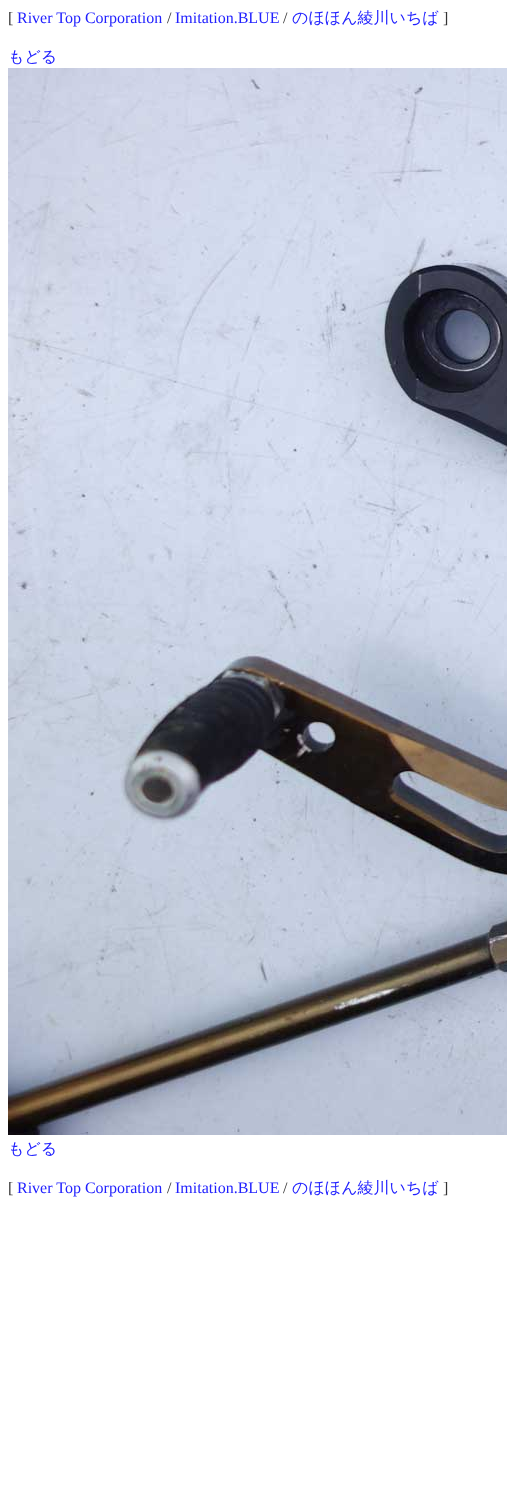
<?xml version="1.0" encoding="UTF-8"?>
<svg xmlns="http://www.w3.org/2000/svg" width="507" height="1488">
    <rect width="100%" height="100%" fill="#FFFFFF"/>
    <text x="8" y="23" font-family="Liberation Serif" font-size="16" fill="#333333">[</text>
    <text x="17" y="23" font-family="Liberation Serif" font-size="16" fill="#2222FF">River Top Corporation</text>
    <text x="167" y="23" font-family="Liberation Serif" font-size="16" fill="#333333">/</text>
    <text x="175" y="23" font-family="Liberation Serif" font-size="16" fill="#2222FF">Imitation.BLUE</text>
    <text x="283" y="23" font-family="Liberation Serif" font-size="16" fill="#333333">/</text>
    <text x="292" y="23" font-family="WenQuanYi Zen Hei" font-size="16" font-weight="500" fill="#2222FF">のほほん綾川いちば</text>
    <text x="443" y="23" font-family="Liberation Serif" font-size="16" fill="#333333">]</text>
    <text x="8" y="62" font-family="WenQuanYi Zen Hei" font-size="16" font-weight="500" fill="#2222FF">もどる</text>
    <image x="8" y="68" width="499" height="1067" href="img_01.png"/>
    <text x="8" y="1154" font-family="WenQuanYi Zen Hei" font-size="16" font-weight="500" fill="#2222FF">もどる</text>
    <text x="8" y="1193" font-family="Liberation Serif" font-size="16" fill="#333333">[</text>
    <text x="17" y="1193" font-family="Liberation Serif" font-size="16" fill="#2222FF">River Top Corporation</text>
    <text x="167" y="1193" font-family="Liberation Serif" font-size="16" fill="#333333">/</text>
    <text x="175" y="1193" font-family="Liberation Serif" font-size="16" fill="#2222FF">Imitation.BLUE</text>
    <text x="283" y="1193" font-family="Liberation Serif" font-size="16" fill="#333333">/</text>
    <text x="292" y="1193" font-family="WenQuanYi Zen Hei" font-size="16" font-weight="500" fill="#2222FF">のほほん綾川いちば</text>
    <text x="443" y="1193" font-family="Liberation Serif" font-size="16" fill="#333333">]</text>
</svg>
